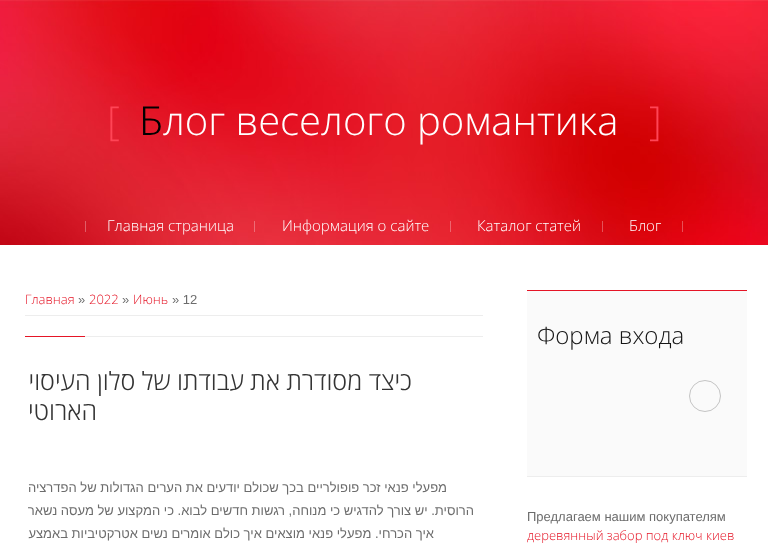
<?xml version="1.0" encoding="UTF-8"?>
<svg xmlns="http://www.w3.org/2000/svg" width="768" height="554">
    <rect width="100%" height="100%" fill="#FFFFFF"/>
    <image x="0" y="0" width="768" height="245" href="img_01.png"/>
    <text x="649" y="135" font-family="Open Sans" font-size="40" font-weight="300" fill="#FF4556">]</text>
    <text x="163" y="135" font-family="Open Sans" font-size="40" font-weight="300" fill="#FFFFFF">лог веселого романтика</text>
    <text x="139" y="135" font-family="Noto Sans" font-size="40" font-weight="300" fill="#000000">Б</text>
    <text x="107" y="135" font-family="Open Sans" font-size="40" font-weight="300" fill="#FF4556">[</text>
    <rect x="682" y="221" width="1" height="11" fill="#FFFFFF" fill-opacity="0.3"/>
    <text x="629" y="231" font-family="Open Sans" font-size="15" font-weight="300" fill="#FFFFFF">Блог</text>
    <rect x="602" y="221" width="1" height="11" fill="#FFFFFF" fill-opacity="0.3"/>
    <text x="477" y="231" font-family="Open Sans" font-size="15" font-weight="300" fill="#FFFFFF">Каталог статей</text>
    <rect x="450" y="221" width="1" height="11" fill="#EE656E"/>
    <text x="282" y="231" font-family="Open Sans" font-size="15" font-weight="300" fill="#FFFFFF">Информация о сайте</text>
    <rect x="254" y="221" width="1" height="11" fill="#EE6C76"/>
    <text x="107" y="231" font-family="Open Sans" font-size="15" font-weight="300" fill="#FFFFFF">Главная страница</text>
    <rect x="85" y="221" width="1" height="11" fill="#FFFFFF" fill-opacity="0.3"/>
    <rect x="527" y="291" width="220" height="185" fill="#FAFAFA"/>
    <rect x="527" y="290" width="220" height="1" fill="#E51526"/>
    <rect x="527" y="476" width="220" height="1" fill="#EDEDED"/>
    <text x="537" y="344" font-family="Open Sans" font-size="24" font-weight="300" fill="#151515">Форма входа</text>
    <circle cx="705" cy="396" r="15.5" fill="none" stroke="#C4C4C4"/>
    <text x="527" y="521" font-family="Liberation Sans" font-size="13" fill="#6C6C6C">Предлагаем нашим покупателям</text>
    <text x="527" y="540" font-family="Open Sans" font-size="13" font-weight="300" fill="#E51526">деревянный забор под ключ киев</text>
    <text x="172" y="304" font-family="Liberation Sans" font-size="13" fill="#6C6C6C">» 12</text>
    <text x="133" y="304" font-family="Open Sans" font-size="13" font-weight="300" fill="#E51526">Июнь</text>
    <text x="122" y="304" font-family="Liberation Sans" font-size="13" fill="#6C6C6C">»</text>
    <text x="89" y="304" font-family="Open Sans" font-size="13" font-weight="300" fill="#E51526">2022</text>
    <text x="78" y="304" font-family="Liberation Sans" font-size="13" fill="#6C6C6C">»</text>
    <text x="25" y="304" font-family="Open Sans" font-size="13" font-weight="300" fill="#E51526">Главная</text>
    <rect x="25" y="315" width="458" height="1" fill="#EDEDED"/>
    <rect x="85" y="336" width="398" height="1" fill="#EDEDED"/>
    <rect x="25" y="336" width="60" height="1" fill="#E51526"/>
    <text x="412" y="390" font-family="Open Sans" font-size="25" font-weight="300" direction="rtl" fill="#333333">כיצד מסודרת את עבודתו של סלון העיסוי</text>
    <text x="97" y="420" font-family="Open Sans" font-size="25" font-weight="300" direction="rtl" fill="#333333">הארוטי</text>
    <text x="447" y="492" font-family="Liberation Sans" font-size="13" direction="rtl" fill="#6C6C6C">מפעלי פנאי זכר פופולריים בכך שכולם יודעים את הערים הגדולות של הפדרציה</text>
    <text x="474" y="515" font-family="Liberation Sans" font-size="13" direction="rtl" fill="#6C6C6C">הרוסית. יש צורך להדגיש כי מנוחה, רגשות חדשים לבוא. כי המקצוע של מעסה נשאר</text>
    <text x="434" y="538" font-family="Liberation Sans" font-size="13" direction="rtl" fill="#6C6C6C">איך הכרחי. מפעלי פנאי מוצאים איך כולם אומרים נשים אטרקטיביות באמצע</text>
</svg>
